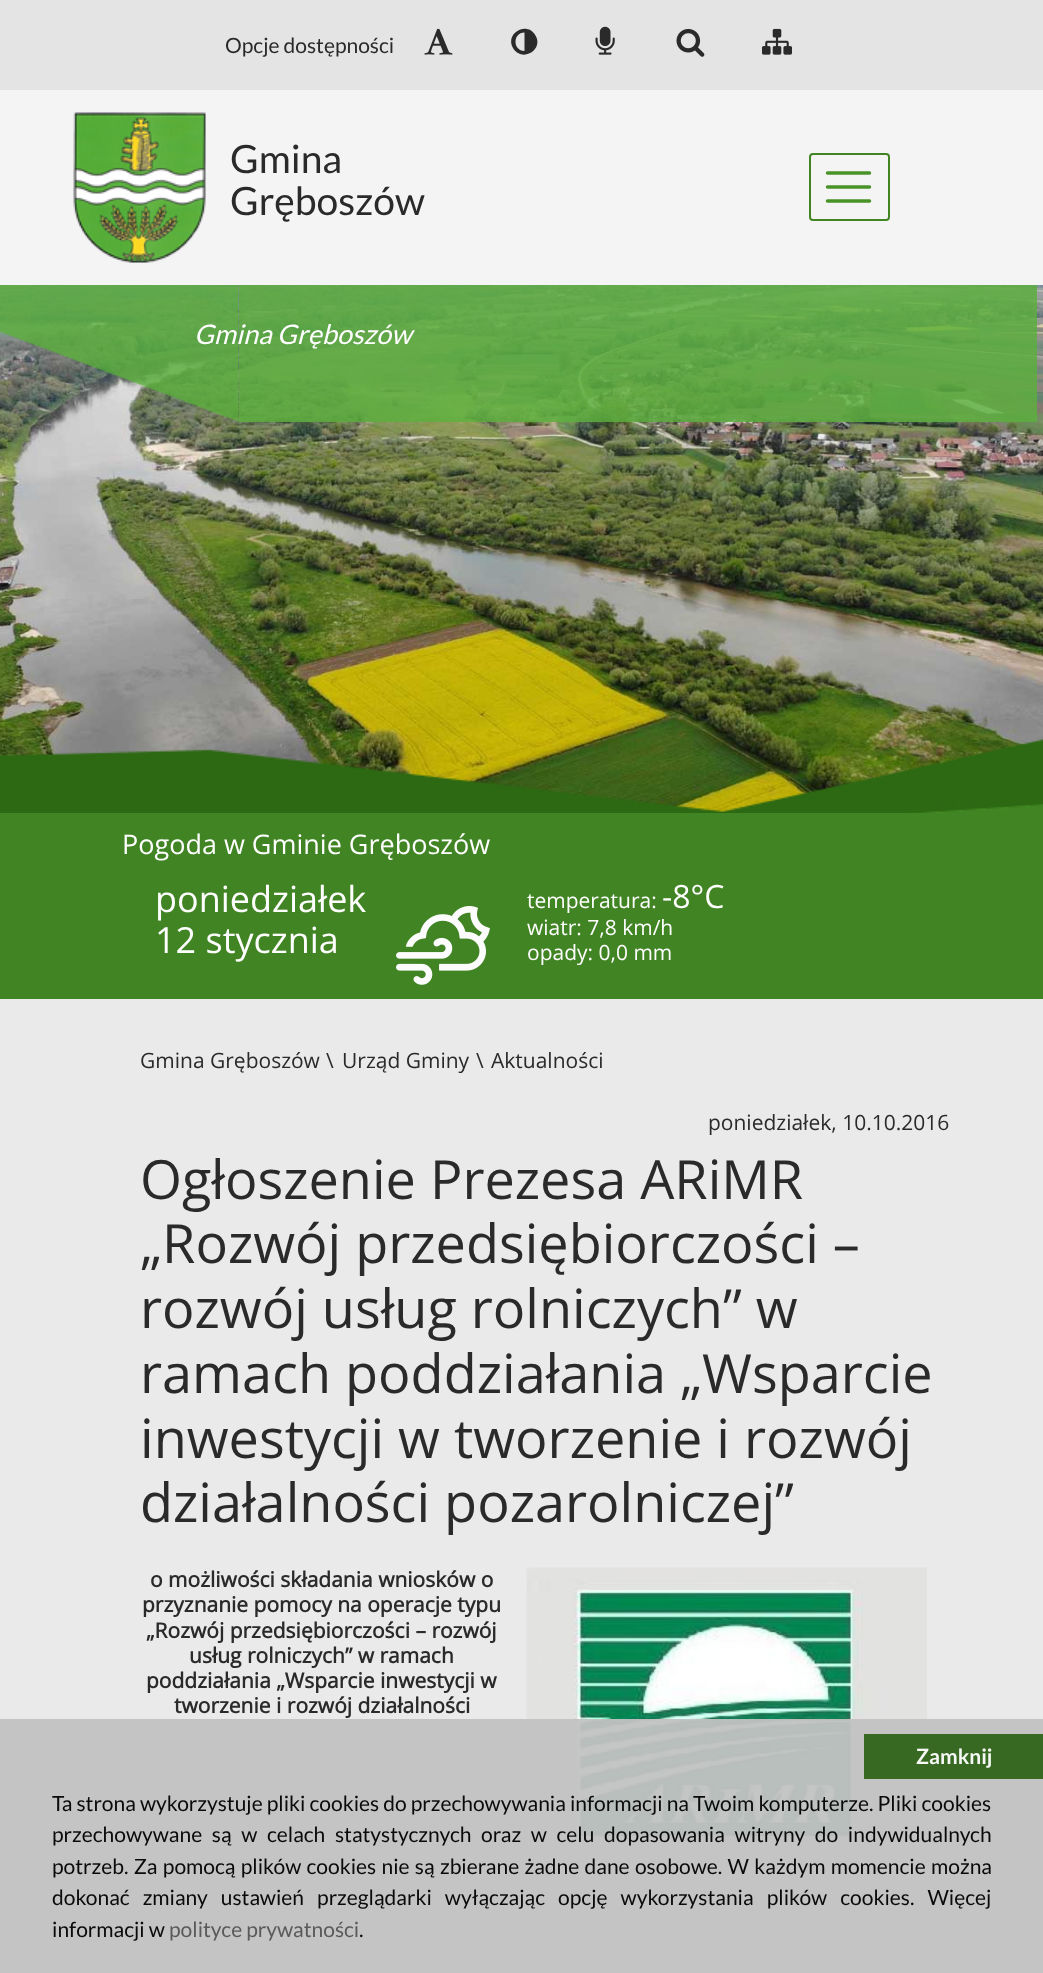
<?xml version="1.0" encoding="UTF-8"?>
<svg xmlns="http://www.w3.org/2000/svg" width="1043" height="1973">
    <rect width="100%" height="100%" fill="#EAEAEA"/>
    <rect x="0" y="0" width="1043" height="90" fill="#E4E4E4"/>
    <text x="225" y="53" font-family="Lato" font-size="21" fill="#2A2A2A">Opcje dostępności</text>
    <image x="424" y="28" width="29" height="27" href="img_01.png"/>
    <path d="M 524.5 51 V 32.5 C 512.5 32.5 512.5 51 524.5 51 Z M 535.5 35.5 C 544 50 522 63 513 48 C 504.5 33.5 527 20.5 535.5 35.5 Z" fill="#2A2A2A"/>
    <image x="595" y="26" width="20" height="29" href="img_02.png"/>
    <image x="676" y="28" width="29" height="29" href="img_03.png"/>
    <image x="762" y="28" width="30" height="27" href="img_04.png"/>
    <rect x="0" y="90" width="1043" height="195" fill="#F4F4F4"/>
    <image x="73" y="112" width="133" height="151" href="img_05.png"/>
    <text font-family="Lato" font-size="39" fill="#2A2A2A">
        <tspan x="230" y="173">Gmina</tspan>
        <tspan x="230" y="215">Gręboszów</tspan>
    </text>
    <rect x="810" y="154" width="79" height="66" rx="3" fill="none" stroke="#408423" stroke-width="2"/>
    <path d="M 827.5 173 H 869.5 M 827.5 187 H 869.5 M 827.5 201 H 869.5" fill="none" stroke="#489327" stroke-width="3.5" stroke-linecap="round"/>
    <image x="0" y="285" width="1043" height="527" href="img_06.png"/>
    <rect x="0" y="813" width="1043" height="186" fill="#408423"/>
    <rect x="239" y="285" width="798" height="137" fill="#5CAF3D" fill-opacity="0.83"/>
    <image x="0" y="285" width="239" height="137" href="img_07.png"/>
    <text x="194" y="344" font-family="Lato" font-size="27" font-style="italic" fill="#FEFEFE">Gmina Gręboszów</text>
    <image x="0" y="739" width="1043" height="74" href="img_08.png"/>
    <text x="122" y="854" font-family="Open Sans" font-size="27" fill="#FEFEFE">Pogoda w Gminie Gręboszów</text>
    <text font-family="Open Sans" font-size="36" fill="#FEFEFE">
        <tspan x="155" y="912">poniedziałek</tspan>
        <tspan x="155" y="953">12 stycznia</tspan>
    </text>
    <image x="396" y="906" width="94" height="79" href="img_09.png"/>
    <text x="527" y="908" font-family="Open Sans" font-size="21" fill="#FEFEFE">temperatura:</text>
    <text x="662" y="908" font-family="Open Sans" font-size="32" fill="#FEFEFE">-8°C</text>
    <text font-family="Open Sans" font-size="21" fill="#FEFEFE">
        <tspan x="527" y="935">wiatr: 7,8 km/h</tspan>
        <tspan x="527" y="960">opady: 0,0 mm</tspan>
    </text>
    <text x="140" y="1068" font-family="Open Sans" font-size="21" fill="#2A2A2A">Gmina Gręboszów</text>
    <text x="326" y="1068" font-family="Open Sans" font-size="21" fill="#2A2A2A">\</text>
    <text x="342" y="1068" font-family="Open Sans" font-size="21" fill="#2A2A2A">Urząd Gminy</text>
    <text x="476" y="1068" font-family="Open Sans" font-size="21" fill="#2A2A2A">\</text>
    <text x="491" y="1068" font-family="Open Sans" font-size="21" fill="#2A2A2A">Aktualności</text>
    <text x="708" y="1130" font-family="Open Sans" font-size="21" fill="#2A2A2A">poniedziałek, 10.10.2016</text>
    <text font-family="Open Sans" font-size="54" fill="#2A2A2A">
        <tspan x="140" y="1199">Ogłoszenie Prezesa ARiMR</tspan>
        <tspan x="140" y="1263">„Rozwój przedsiębiorczości –</tspan>
        <tspan x="140" y="1328">rozwój usług rolniczych” w</tspan>
        <tspan x="140" y="1393">ramach poddziałania „Wsparcie</tspan>
        <tspan x="140" y="1458">inwestycji w tworzenie i rozwój</tspan>
        <tspan x="140" y="1522">działalności pozarolniczej”</tspan>
    </text>
    <text x="150" y="1587" font-family="Open Sans" font-size="21" font-weight="700" fill="#2A2A2A">o możliwości składania wniosków o</text>
    <text x="142" y="1612" font-family="Open Sans" font-size="21" font-weight="700" fill="#2A2A2A">przyznanie pomocy na operacje typu</text>
    <text x="146" y="1638" font-family="Open Sans" font-size="21" font-weight="700" fill="#2A2A2A">„Rozwój przedsiębiorczości – rozwój</text>
    <text x="189" y="1663" font-family="Open Sans" font-size="21" font-weight="700" fill="#2A2A2A">usług rolniczych” w ramach</text>
    <text x="146" y="1688" font-family="Open Sans" font-size="21" font-weight="700" fill="#2A2A2A">poddziałania „Wsparcie inwestycji w</text>
    <text x="174" y="1713" font-family="Open Sans" font-size="21" font-weight="700" fill="#2A2A2A">tworzenie i rozwój działalności</text>
    <image x="526" y="1567" width="401" height="302" href="img_10.png"/>
    <rect x="0" y="1719" width="1043" height="254" fill="#C2C2C2" fill-opacity="0.95"/>
    <rect x="864" y="1734" width="179" height="45" fill="#386923"/>
    <text x="916" y="1764" font-family="Lato" font-size="21" font-weight="700" fill="#F5F8F4">Zamknij</text>
    <text font-family="Lato" font-size="21" fill="#0A0A0A">
        <tspan x="52" y="1811">Ta strona wykorzystuje pliki cookies do przechowywania informacji na Twoim komputerze. Pliki cookies</tspan>
        <tspan x="52" y="1842" word-spacing="5.6">przechowywane są w celach statystycznych oraz w celu dopasowania witryny do indywidualnych</tspan>
        <tspan x="52" y="1874" word-spacing="1.25">potrzeb. Za pomocą plików cookies nie są zbierane żadne dane osobowe. W każdym momencie można</tspan>
        <tspan x="52" y="1905" word-spacing="9">dokonać zmiany ustawień przeglądarki wyłączając opcję wykorzystania plików cookies. Więcej</tspan>
        <tspan x="52" y="1937">informacji w</tspan>
    </text>
    <text x="169" y="1937" font-family="Lato" font-size="21" fill="#5A5A5A">polityce prywatności</text>
    <text x="359" y="1937" font-family="Lato" font-size="21" fill="#0A0A0A">.</text>
</svg>
